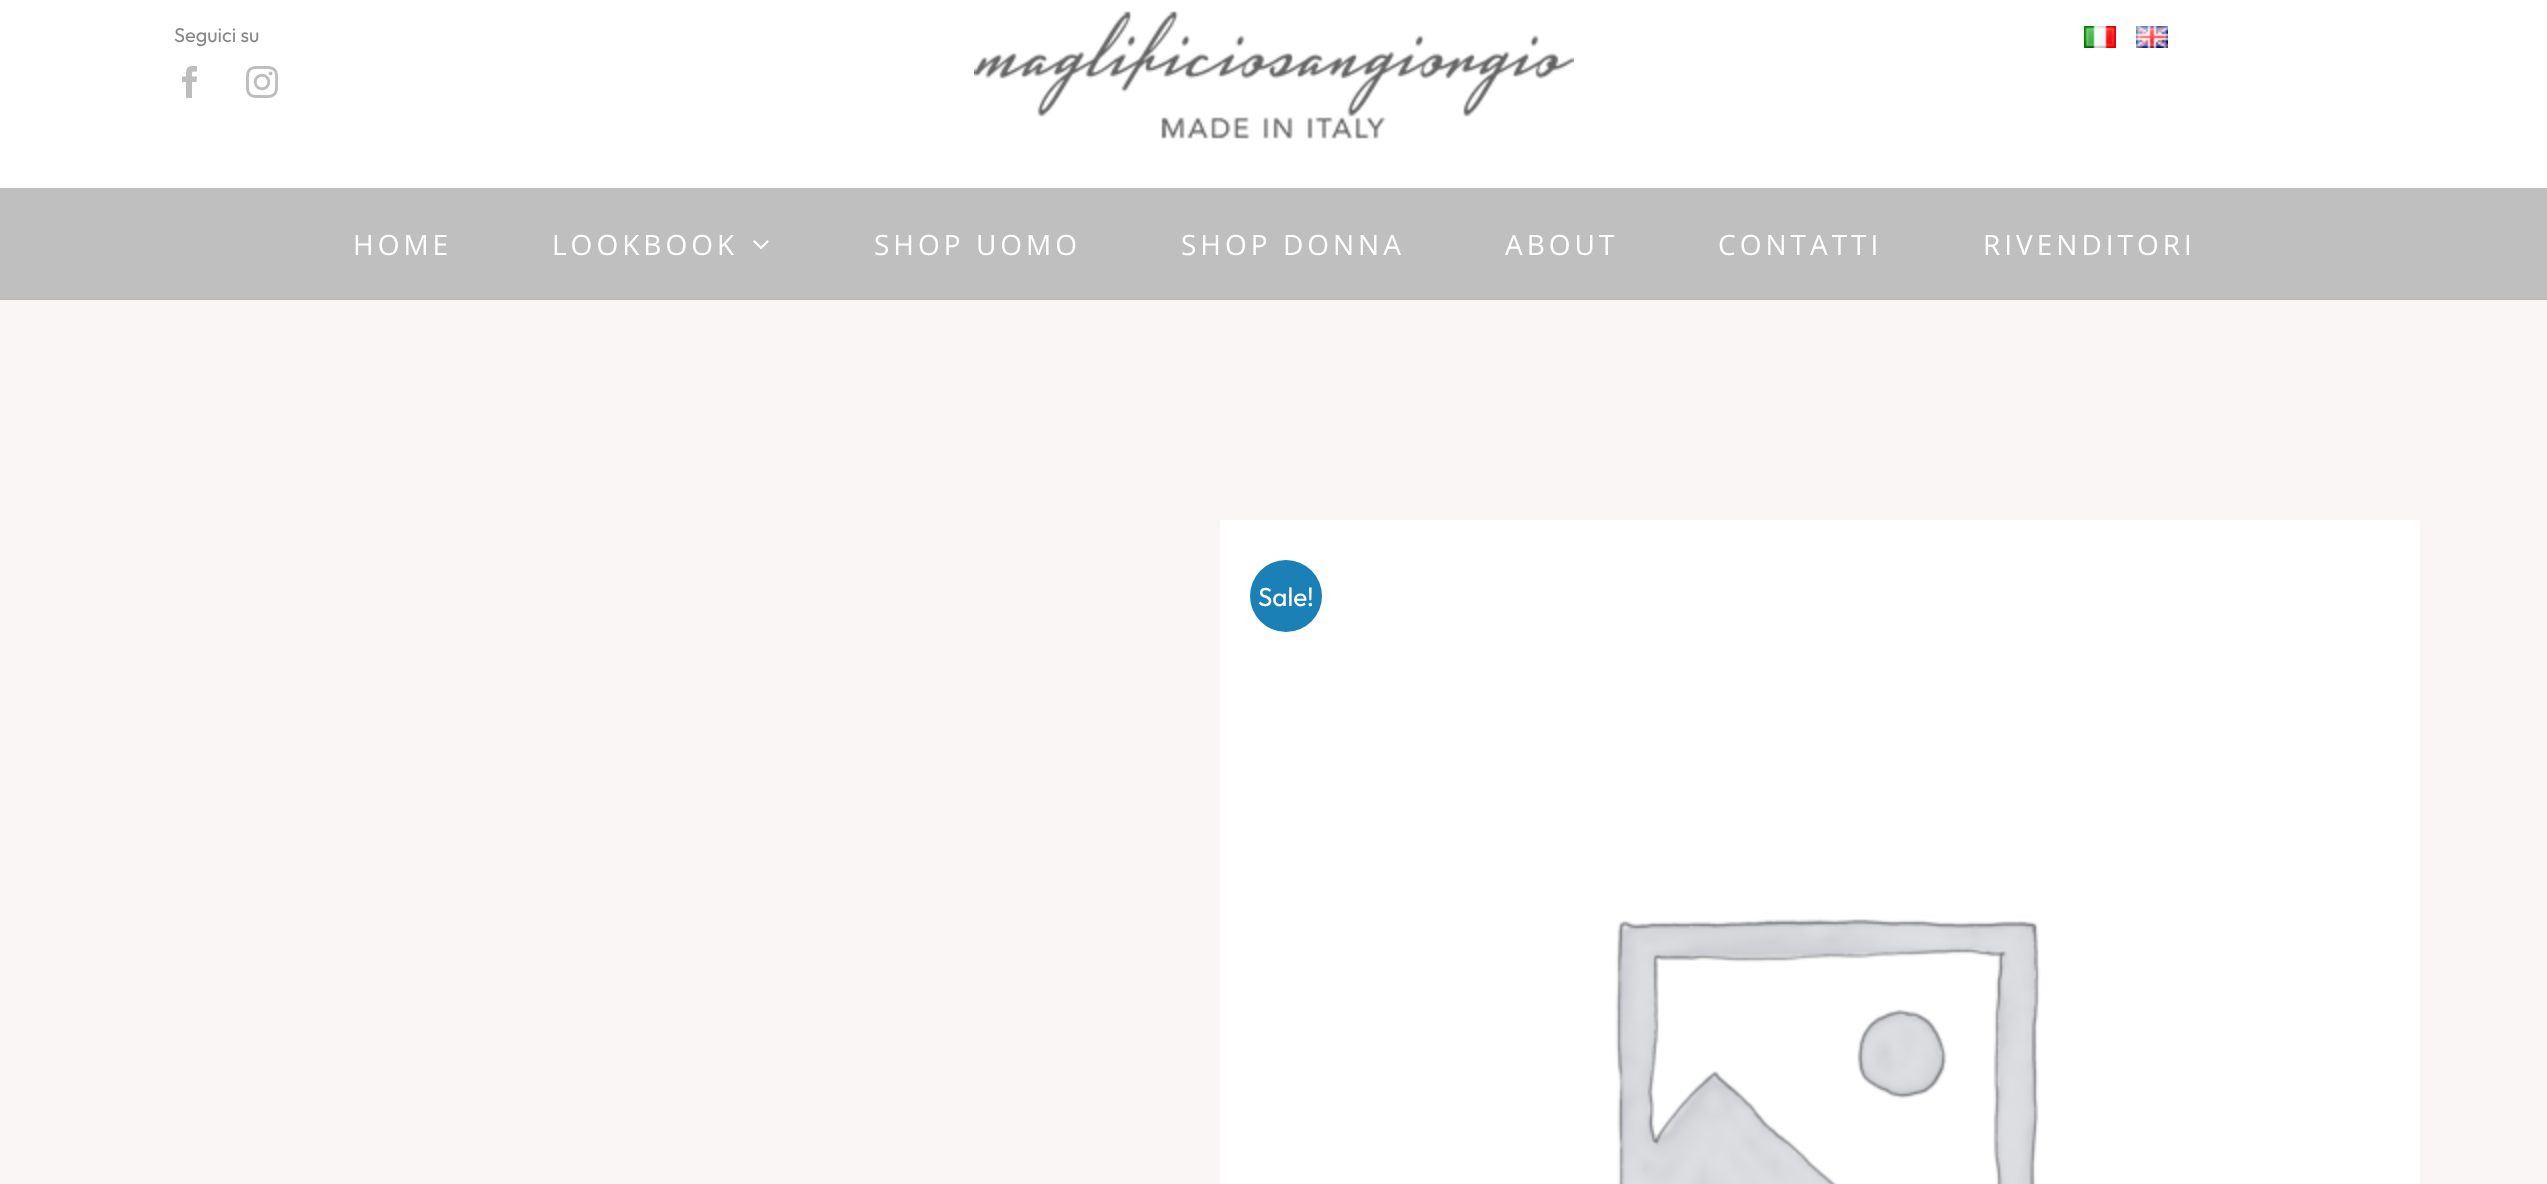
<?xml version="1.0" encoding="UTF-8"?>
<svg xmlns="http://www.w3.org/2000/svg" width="2547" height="1184">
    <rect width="100%" height="100%" fill="#FFFFFF"/>
    <rect x="0" y="188" width="2547" height="110" fill="#BFBFBF"/>
    <text x="174" y="42" font-family="Outfit" font-size="20" fill="#898989">Seguici su</text>
    <image x="182" y="66" width="15" height="32" href="img_01.png"/>
    <image x="246" y="66" width="32" height="32" href="img_02.png"/>
    <image x="974" y="11" width="600" height="128" href="img_03.png"/>
    <image x="2084" y="26" width="32" height="22" href="img_04.png"/>
    <image x="2136" y="26" width="32" height="22" href="img_05.png"/>
    <text x="353" y="255" font-family="Open Sans" font-size="28" letter-spacing="4" fill="#FFFFFF">HOME</text>
    <text x="552" y="255" font-family="Open Sans" font-size="28" letter-spacing="4" fill="#FFFFFF">LOOKBOOK</text>
    <image x="753" y="240" width="16" height="10" href="img_06.png"/>
    <text x="874" y="255" font-family="Open Sans" font-size="28" letter-spacing="4" fill="#FFFFFF">SHOP UOMO</text>
    <text x="1181" y="255" font-family="Open Sans" font-size="28" letter-spacing="4" fill="#FFFFFF">SHOP DONNA</text>
    <text x="1505" y="255" font-family="Open Sans" font-size="28" letter-spacing="4" fill="#FFFFFF">ABOUT</text>
    <text x="1718" y="255" font-family="Open Sans" font-size="28" letter-spacing="4" fill="#FFFFFF">CONTATTI</text>
    <text x="1983" y="255" font-family="Open Sans" font-size="28" letter-spacing="4" fill="#FFFFFF">RIVENDITORI</text>
    <rect x="0" y="300" width="2547" height="884" fill="#FBF6F6"/>
    <rect x="0" y="298" width="2547" height="2" fill="#BDB9B9"/>
    <image x="1220" y="520" width="1200" height="664" href="img_07.png"/>
    <circle cx="1286" cy="596" r="36" fill="#1A80B6"/>
    <text x="1258" y="606" font-family="Outfit" font-size="26" fill="#FFFFFF">Sale!</text>
</svg>
